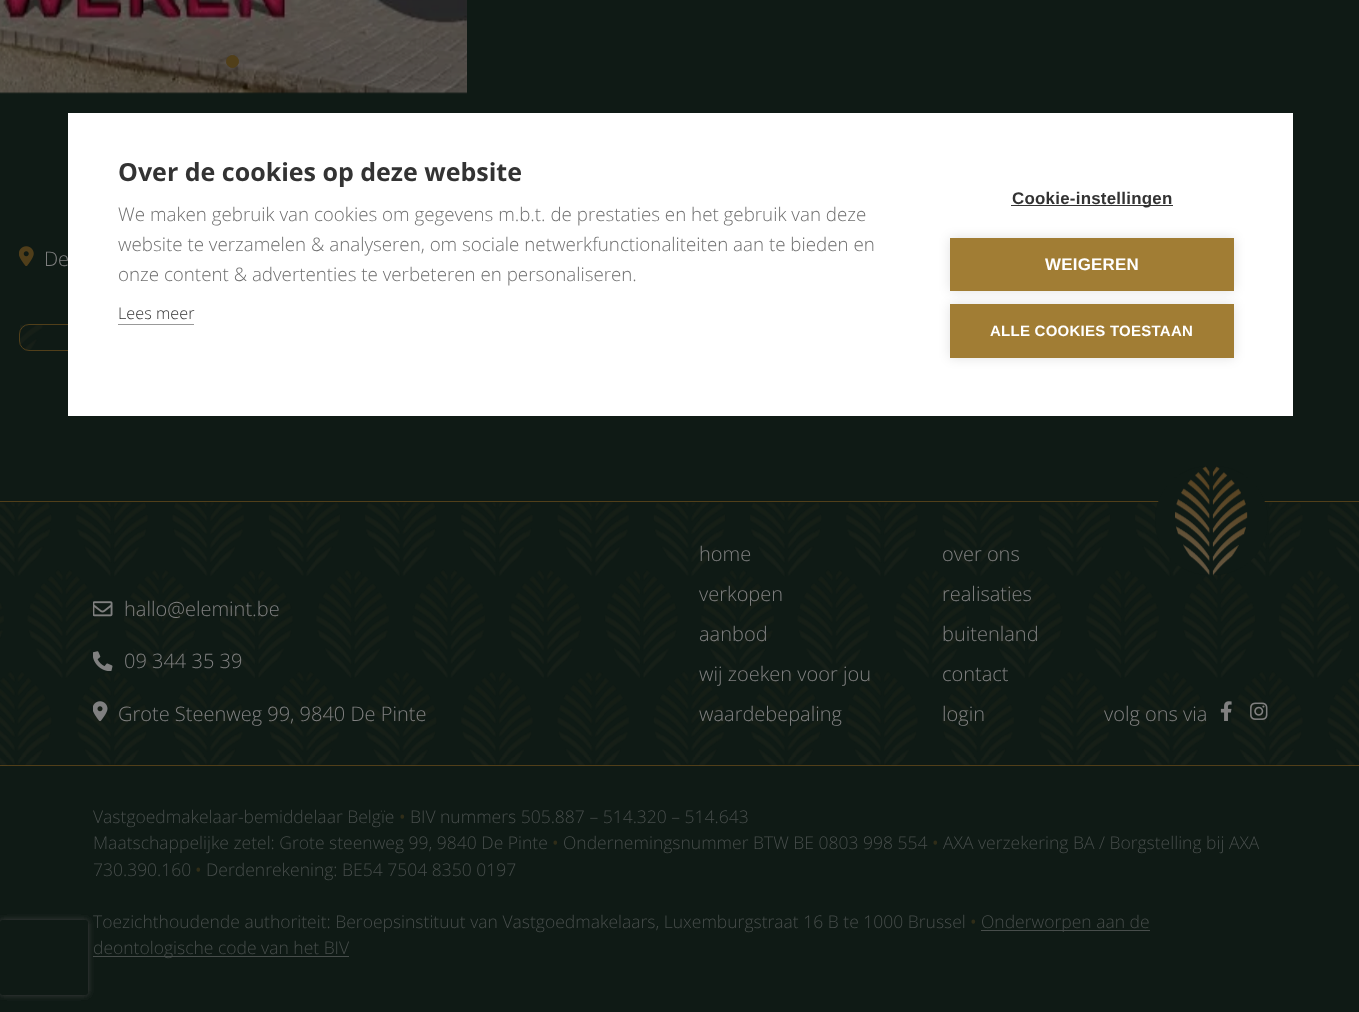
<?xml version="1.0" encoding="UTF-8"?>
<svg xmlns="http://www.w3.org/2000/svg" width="1359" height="1012">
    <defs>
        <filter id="blur1" x="-50%" y="-200%" width="200%" height="500%"><feGaussianBlur stdDeviation="6"/></filter>
        <clipPath id="clip1"><path d="M 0 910 H 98 V 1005 H 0 Z M 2.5 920 H 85.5 C 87 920 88 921 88 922.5 V 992.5 C 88 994 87 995 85.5 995 H 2.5 C 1 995 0 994 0 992.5 V 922.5 C 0 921 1 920 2.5 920 Z" clip-rule="evenodd"/></clipPath>
        <filter id="blur2" x="-50%" y="-200%" width="200%" height="500%"><feGaussianBlur stdDeviation="3"/></filter>
    </defs>
    <rect width="100%" height="100%" fill="#0F1A15"/>
    <rect x="19.5" y="324.5" width="1174" height="26" rx="9.5" fill="none" stroke="#513F1A"/>
    <rect x="68" y="113" width="1225" height="303" fill="#FFFFFF"/>
    <text x="118" y="181" font-family="Open Sans" font-size="25" font-weight="700" fill="#333333">Over de cookies op deze website</text>
    <text font-family="Open Sans" font-size="18.75" font-weight="300" fill="#707070">
        <tspan x="118" y="221">We maken gebruik van cookies om gegevens m.b.t. de prestaties en het gebruik van deze</tspan>
        <tspan x="118" y="251">website te verzamelen &amp; analyseren, om sociale netwerkfunctionaliteiten aan te bieden en</tspan>
        <tspan x="118" y="281">onze content &amp; advertenties te verbeteren en personaliseren.</tspan>
    </text>
    <text x="118" y="319" font-family="Open Sans" font-size="16.25" font-weight="300" fill="#333333">Lees meer</text>
    <rect x="118" y="324" width="76" height="1" fill="#999999"/>
    <rect x="1011" y="205" width="162" height="1" fill="#333333"/>
    <text x="1012" y="204" font-family="Liberation Sans" font-size="16.9" font-weight="700" letter-spacing="0.25" fill="#333333">Cookie-instellingen</text>
    <rect x="950" y="238" width="284" height="53" fill="#000000" fill-opacity="0.12" filter="url(#blur1)"/>
    <rect x="950" y="238" width="284" height="53" fill="#A17D34"/>
    <text x="1045" y="270" font-family="Liberation Sans" font-size="16.9" font-weight="700" letter-spacing="0.25" fill="#FFFFFF">WEIGEREN</text>
    <rect x="950" y="304" width="284" height="54" fill="#000000" fill-opacity="0.12" filter="url(#blur1)"/>
    <rect x="950" y="304" width="284" height="54" fill="#A17D34"/>
    <text x="990" y="336" font-family="Liberation Sans" font-size="15" font-weight="700" letter-spacing="0.25" fill="#FFFFFF">ALLE COOKIES TOESTAAN</text>
    <image x="0" y="0" width="467" height="94" href="img_01.png"/>
    <circle cx="232.5" cy="61.5" r="6" fill="#513F1A" stroke="#513F1A"/>
    <image x="19" y="246" width="15" height="20" href="img_02.png"/>
    <text x="44" y="266" font-family="Open Sans" font-size="20" font-weight="300" fill="#808080">De</text>
    <image x="20" y="325" width="23" height="26" href="img_03.png"/>
    <rect x="0" y="501" width="1359" height="1" fill="#513F1A"/>
    <rect x="0" y="765" width="1359" height="1" fill="#513F1A"/>
    <image x="0" y="502" width="1359" height="264" href="img_05.png"/>
    <rect x="1155" y="466" width="113" height="109" rx="54" fill="#0F1A15"/>
    <image x="1175" y="466" width="73" height="110" href="img_04.png"/>
    <image x="93" y="601" width="20" height="16" href="img_06.png"/>
    <text x="124" y="616" font-family="Open Sans" font-size="20" font-weight="300" fill="#808080">hallo@elemint.be</text>
    <image x="93" y="651" width="20" height="20" href="img_07.png"/>
    <text x="124" y="668" font-family="Open Sans" font-size="20" font-weight="300" fill="#808080">09 344 35 39</text>
    <image x="93" y="701" width="15" height="20" href="img_08.png"/>
    <text x="118" y="721" font-family="Open Sans" font-size="20" font-weight="300" fill="#808080">Grote Steenweg 99, 9840 De Pinte</text>
    <text x="699" y="561" font-family="Open Sans" font-size="20" font-weight="300" fill="#808080">home</text>
    <text x="699" y="601" font-family="Open Sans" font-size="20" font-weight="300" fill="#808080">verkopen</text>
    <text x="699" y="641" font-family="Open Sans" font-size="20" font-weight="300" fill="#808080">aanbod</text>
    <text x="699" y="681" font-family="Open Sans" font-size="20" font-weight="300" fill="#808080">wij zoeken voor jou</text>
    <text x="699" y="721" font-family="Open Sans" font-size="20" font-weight="300" fill="#808080">waardebepaling</text>
    <text x="942" y="561" font-family="Open Sans" font-size="20" font-weight="300" fill="#808080">over ons</text>
    <text x="942" y="601" font-family="Open Sans" font-size="20" font-weight="300" fill="#808080">realisaties</text>
    <text x="942" y="641" font-family="Open Sans" font-size="20" font-weight="300" fill="#808080">buitenland</text>
    <text x="942" y="681" font-family="Open Sans" font-size="20" font-weight="300" fill="#808080">contact</text>
    <text x="942" y="721" font-family="Open Sans" font-size="20" font-weight="300" fill="#808080">login</text>
    <text x="1104" y="721" font-family="Open Sans" font-size="20" font-weight="300" fill="#808080">volg ons via</text>
    <image x="1220" y="701" width="12" height="20" href="img_09.png"/>
    <image x="1250" y="702" width="18" height="18" href="img_10.png"/>
    <text x="93" y="823" font-family="Open Sans" font-size="17.5" font-weight="300" fill="#474D4B">Vastgoedmakelaar-bemiddelaar Belgïe</text>
    <text x="399" y="823" font-family="Open Sans" font-size="17.5" fill="#302D18">•</text>
    <text x="410" y="823" font-family="Open Sans" font-size="17.5" font-weight="300" fill="#474D4B">BIV nummers 505.887 – 514.320 – 514.643</text>
    <text x="93" y="849" font-family="Open Sans" font-size="17.5" font-weight="300" fill="#474D4B">Maatschappelijke zetel: Grote steenweg 99, 9840 De Pinte</text>
    <text x="552" y="849" font-family="Open Sans" font-size="17.5" fill="#302D18">•</text>
    <text x="563" y="849" font-family="Open Sans" font-size="17.5" font-weight="300" fill="#474D4B">Ondernemingsnummer BTW BE 0803 998 554</text>
    <text x="932" y="849" font-family="Open Sans" font-size="17.5" fill="#302D18">•</text>
    <text x="943" y="849" font-family="Open Sans" font-size="17.5" font-weight="300" fill="#474D4B">AXA verzekering BA / Borgstelling bij AXA</text>
    <text x="93" y="876" font-family="Open Sans" font-size="17.5" font-weight="300" fill="#474D4B">730.390.160</text>
    <text x="195" y="876" font-family="Open Sans" font-size="17.5" fill="#302D18">•</text>
    <text x="206" y="876" font-family="Open Sans" font-size="17.5" font-weight="300" fill="#474D4B">Derdenrekening: BE54 7504 8350 0197</text>
    <text x="93" y="928" font-family="Open Sans" font-size="17.5" font-weight="300" fill="#474D4B">Toezichthoudende authoriteit: Beroepsinstituut van Vastgoedmakelaars, Luxemburgstraat 16 B te 1000 Brussel</text>
    <text x="970" y="928" font-family="Open Sans" font-size="17.5" fill="#302D18">•</text>
    <rect x="981" y="930" width="169" height="1" fill="#474D4B"/>
    <text x="981" y="928" font-family="Open Sans" font-size="17.5" font-weight="300" fill="#474D4B">Onderworpen aan de</text>
    <rect x="93" y="956" width="256" height="1" fill="#474D4B"/>
    <text x="93" y="954" font-family="Open Sans" font-size="17.5" font-weight="300" fill="#474D4B">deontologische code van het BIV</text>
    <g clip-path="url(#clip1)">
        <rect x="0" y="920" width="88" height="75" rx="2.5" fill="#404040" filter="url(#blur2)"/>
    </g>
</svg>
